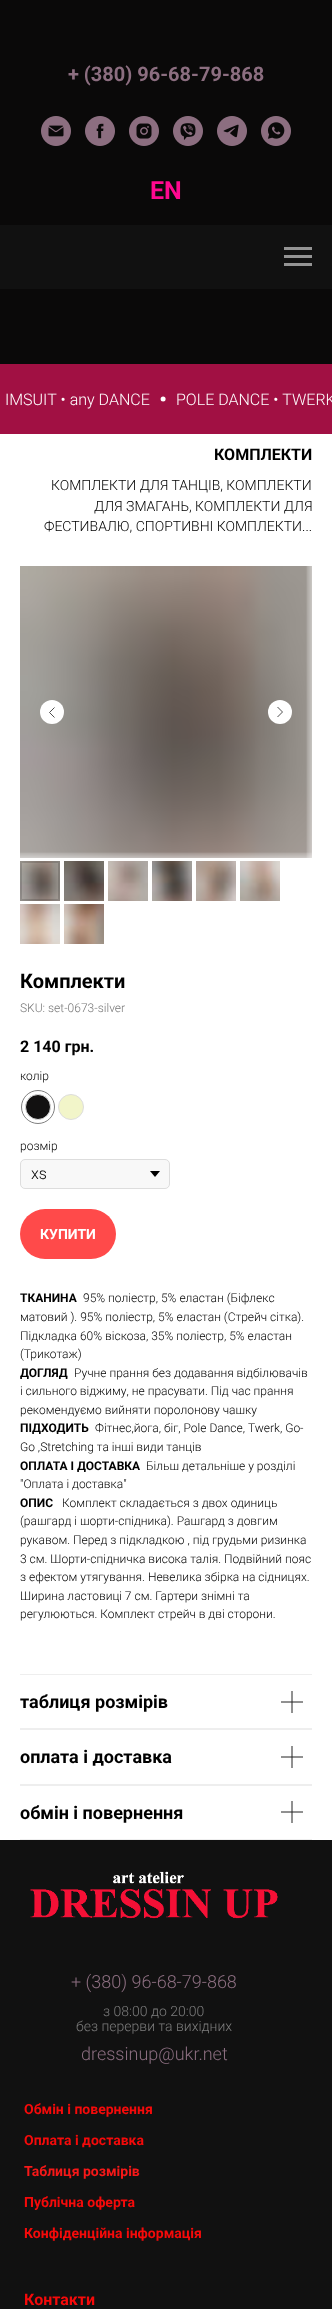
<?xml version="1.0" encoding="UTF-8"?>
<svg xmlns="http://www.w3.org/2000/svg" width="332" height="2309">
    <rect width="100%" height="100%" fill="#FFFFFF"/>
    <rect x="0" y="0" width="332" height="225" fill="#0A0909"/>
    <text x="68" y="81" font-family="Roboto" font-size="20" font-weight="700" fill="#8C6E80">+ (380) 96-68-79-868</text>
    <image x="41" y="116" width="30" height="30" href="img_01.png"/>
    <image x="85" y="116" width="30" height="30" href="img_02.png"/>
    <image x="129" y="116" width="30" height="30" href="img_03.png"/>
    <image x="173" y="116" width="30" height="30" href="img_04.png"/>
    <image x="217" y="116" width="30" height="30" href="img_05.png"/>
    <image x="261" y="116" width="30" height="30" href="img_06.png"/>
    <text x="150" y="199" font-family="Roboto" font-size="25" font-weight="700" fill="#FF0890">EN</text>
    <rect x="0" y="225" width="332" height="64" fill="#111111"/>
    <rect x="284" y="247" width="28" height="3" fill="#949494"/>
    <rect x="284" y="255" width="28" height="3" fill="#949494"/>
    <rect x="284" y="263" width="28" height="3" fill="#949494"/>
    <rect x="0" y="289" width="332" height="75" fill="#0A0909"/>
    <rect x="0" y="364" width="332" height="70" fill="#A11043"/>
    <text x="5" y="405" font-family="Roboto" font-size="16" font-weight="300" fill="#FFFFFF">IMSUIT • any DANCE</text>
    <circle cx="163.1" cy="399" r="2.5" fill="#FFFFFF"/>
    <text x="176" y="405" font-family="Roboto" font-size="16" font-weight="300" fill="#FFFFFF">POLE DANCE • TWERK</text>
    <text x="214" y="460" font-family="Roboto" font-size="16" font-weight="700" fill="#000000">КОМПЛЕКТИ</text>
    <text x="51" y="490" font-family="Roboto" font-size="14" font-weight="300" fill="#000000">КОМПЛЕКТИ ДЛЯ ТАНЦІВ, КОМПЛЕКТИ</text>
    <text x="94" y="511" font-family="Roboto" font-size="14" font-weight="300" fill="#000000">ДЛЯ ЗМАГАНЬ, КОМПЛЕКТИ ДЛЯ</text>
    <text x="44" y="531" font-family="Roboto" font-size="14" font-weight="300" fill="#000000">ФЕСТИВАЛЮ, СПОРТИВНІ КОМПЛЕКТИ...</text>
    <image x="20" y="566" width="292" height="292" href="img_07.png"/>
    <circle cx="52" cy="712" r="12" fill="#FFFFFF"/>
    <path d="M 54.5 717.5 L 49.5 712.5 L 54.5 707.5" fill="none" stroke="#222222" stroke-width="0.8"/>
    <circle cx="280" cy="712" r="12" fill="#FFFFFF"/>
    <path d="M 277.5 707 L 282.5 712 L 277.5 717" fill="none" stroke="#222222" stroke-width="0.8"/>
    <image x="20" y="861" width="40" height="40" href="img_08.png"/>
    <rect x="21" y="862" width="38" height="38" fill="none" stroke="#000000" stroke-opacity="0.15" stroke-width="2"/>
    <image x="64" y="861" width="40" height="40" href="img_09.png"/>
    <image x="108" y="861" width="40" height="40" href="img_10.png"/>
    <image x="152" y="861" width="40" height="40" href="img_11.png"/>
    <image x="196" y="861" width="40" height="40" href="img_12.png"/>
    <image x="240" y="861" width="40" height="40" href="img_13.png"/>
    <image x="20" y="904" width="40" height="40" href="img_14.png"/>
    <image x="64" y="904" width="40" height="40" href="img_15.png"/>
    <text x="20" y="988" font-family="Roboto" font-size="20" font-weight="700" fill="#000000">Комплекти</text>
    <text x="20" y="1012" font-family="Roboto" font-size="12" font-weight="300" fill="#777777">SKU: set-0673-silver</text>
    <text x="20" y="1052" font-family="Roboto" font-size="16" font-weight="700" fill="#000000">2 140 грн.</text>
    <text x="20" y="1080" font-family="Roboto" font-size="12" font-weight="300" fill="#000000">колір</text>
    <circle cx="38" cy="1107" r="12.5" fill="#121111" stroke="#DDDDDD"/>
    <circle cx="38" cy="1107" r="16.5" fill="none" stroke="#808080"/>
    <circle cx="71" cy="1107" r="12.5" fill="#F2F5C9" stroke="#DDDDDD"/>
    <text x="20" y="1150" font-family="Roboto" font-size="12" font-weight="300" fill="#000000">розмір</text>
    <rect x="20.5" y="1159.5" width="149" height="29" rx="4.5" fill="#F8F8F8" stroke="#DDDDDD"/>
    <text x="31" y="1179" font-family="Roboto" font-size="16" font-weight="300" fill="#000000">xs</text>
    <path d="M 150 1171 H 160 L 155 1177 Z" fill="#000000"/>
    <rect x="20" y="1209" width="96" height="50" rx="25" fill="#FF4A4A"/>
    <text x="40" y="1239" font-family="Roboto" font-size="14" font-weight="700" fill="#FFFFFF">КУПИТИ</text>
    <text x="20" y="1302" font-family="Roboto" font-size="12" font-weight="700" fill="#000000">ТКАНИНА</text>
    <text x="83" y="1302" font-family="Roboto" font-size="12" font-weight="300" fill="#000000">95% поліестр, 5% еластан (Біфлекс</text>
    <text font-family="Roboto" font-size="12" font-weight="300" fill="#000000">
        <tspan x="20" y="1321">матовий ). 95% поліестр, 5% еластан (Стрейч сітка).</tspan>
        <tspan x="20" y="1340">Підкладка 60% віскоза, 35% поліестр, 5% еластан</tspan>
        <tspan x="20" y="1358">(Трикотаж)</tspan>
    </text>
    <text x="20" y="1377" font-family="Roboto" font-size="12" font-weight="700" fill="#000000">ДОГЛЯД</text>
    <text x="74" y="1377" font-family="Roboto" font-size="12" font-weight="300" fill="#000000">Ручне прання без додавання відбілювачів</text>
    <text font-family="Roboto" font-size="12" font-weight="300" fill="#000000">
        <tspan x="20" y="1395">і сильного віджиму, не прасувати. Під час прання</tspan>
        <tspan x="20" y="1414">рекомендуємо вийняти поролонову чашку</tspan>
    </text>
    <text x="20" y="1432" font-family="Roboto" font-size="12" font-weight="700" fill="#000000">ПІДХОДИТЬ</text>
    <text x="95" y="1432" font-family="Roboto" font-size="12" font-weight="300" fill="#000000">Фітнес,йога, біг, Pole Dance, Twerk, Go-</text>
    <text x="20" y="1451" font-family="Roboto" font-size="12" font-weight="300" fill="#000000">Go ,Stretching та інші види танців</text>
    <text x="20" y="1470" font-family="Roboto" font-size="12" font-weight="700" fill="#000000">ОПЛАТА І ДОСТАВКА</text>
    <text x="146" y="1470" font-family="Roboto" font-size="12" font-weight="300" fill="#000000">Більш детальніше у розділі</text>
    <text x="20" y="1488" font-family="Roboto" font-size="12" font-weight="300" fill="#000000">"Оплата і доставка"</text>
    <text x="20" y="1507" font-family="Roboto" font-size="12" font-weight="700" fill="#000000">ОПИС</text>
    <text x="62" y="1507" font-family="Roboto" font-size="12" font-weight="300" fill="#000000">Комплект складається з двох одиниць</text>
    <text font-family="Roboto" font-size="12" font-weight="300" fill="#000000">
        <tspan x="20" y="1525">(рашгард і шорти-спідника). Рашгард з довгим</tspan>
        <tspan x="20" y="1544">рукавом. Перед з підкладкою , під грудьми ризинка</tspan>
        <tspan x="20" y="1563">3 см. Шорти-спідничка висока талія. Подвійний пояс</tspan>
        <tspan x="20" y="1581">з ефектом утягування. Невелика збірка на сідницях.</tspan>
        <tspan x="20" y="1600">Ширина ластовиці 7 см. Гартери знімні та</tspan>
        <tspan x="20" y="1618">регулюються. Комплект стрейч в дві сторони.</tspan>
    </text>
    <rect x="20" y="1674" width="292" height="1" fill="#EEEEEE"/>
    <text x="20" y="1708" font-family="Roboto" font-size="18" font-weight="700" fill="#000000">таблиця розмірів</text>
    <path d="M 281 1702 H 303 M 292 1691 V 1713" fill="none" stroke="#222222"/>
    <rect x="20" y="1728" width="292" height="2" fill="#EEEEEE"/>
    <text x="20" y="1763" font-family="Roboto" font-size="18" font-weight="700" fill="#000000">оплата і доставка</text>
    <path d="M 281 1757 H 303 M 292 1746 V 1768" fill="none" stroke="#222222"/>
    <rect x="20" y="1784" width="292" height="2" fill="#EEEEEE"/>
    <text x="20" y="1819" font-family="Roboto" font-size="18" font-weight="700" fill="#000000">обмін і повернення</text>
    <path d="M 281 1812 H 303 M 292 1801 V 1823" fill="none" stroke="#222222"/>
    <rect x="20" y="1839" width="292" height="1" fill="#EEEEEE"/>
    <rect x="0" y="1840" width="332" height="469" fill="#111111"/>
    <image x="30" y="1871" width="248" height="48" href="img_16.png"/>
    <text x="71" y="1988" font-family="Roboto" font-size="18" font-weight="300" fill="#8C6E80">+ (380) 96-68-79-868</text>
    <text x="103" y="2016" font-family="Roboto" font-size="14" font-weight="300" fill="#7D7D7D">з 08:00 до 20:00</text>
    <text x="76" y="2031" font-family="Roboto" font-size="14" font-weight="300" fill="#7D7D7D">без перерви та вихідних</text>
    <text x="81" y="2060" font-family="Roboto" font-size="18" font-weight="300" fill="#8C6E80">dressinup@ukr.net</text>
    <text x="24" y="2114" font-family="Roboto" font-size="14" font-weight="700" fill="#F50A0A">Обмін і повернення</text>
    <text x="24" y="2145" font-family="Roboto" font-size="14" font-weight="700" fill="#F50A0A">Оплата і доставка</text>
    <text x="24" y="2176" font-family="Roboto" font-size="14" font-weight="700" fill="#F71818">Таблиця розмірів</text>
    <text x="24" y="2207" font-family="Roboto" font-size="14" font-weight="700" fill="#F50A0A">Публічна оферта</text>
    <text x="24" y="2238" font-family="Roboto" font-size="14" font-weight="700" fill="#F50A0A">Конфіденційна інформація</text>
    <text x="24" y="2305" font-family="Roboto" font-size="16" font-weight="700" fill="#F50A0A">Контакти</text>
</svg>
